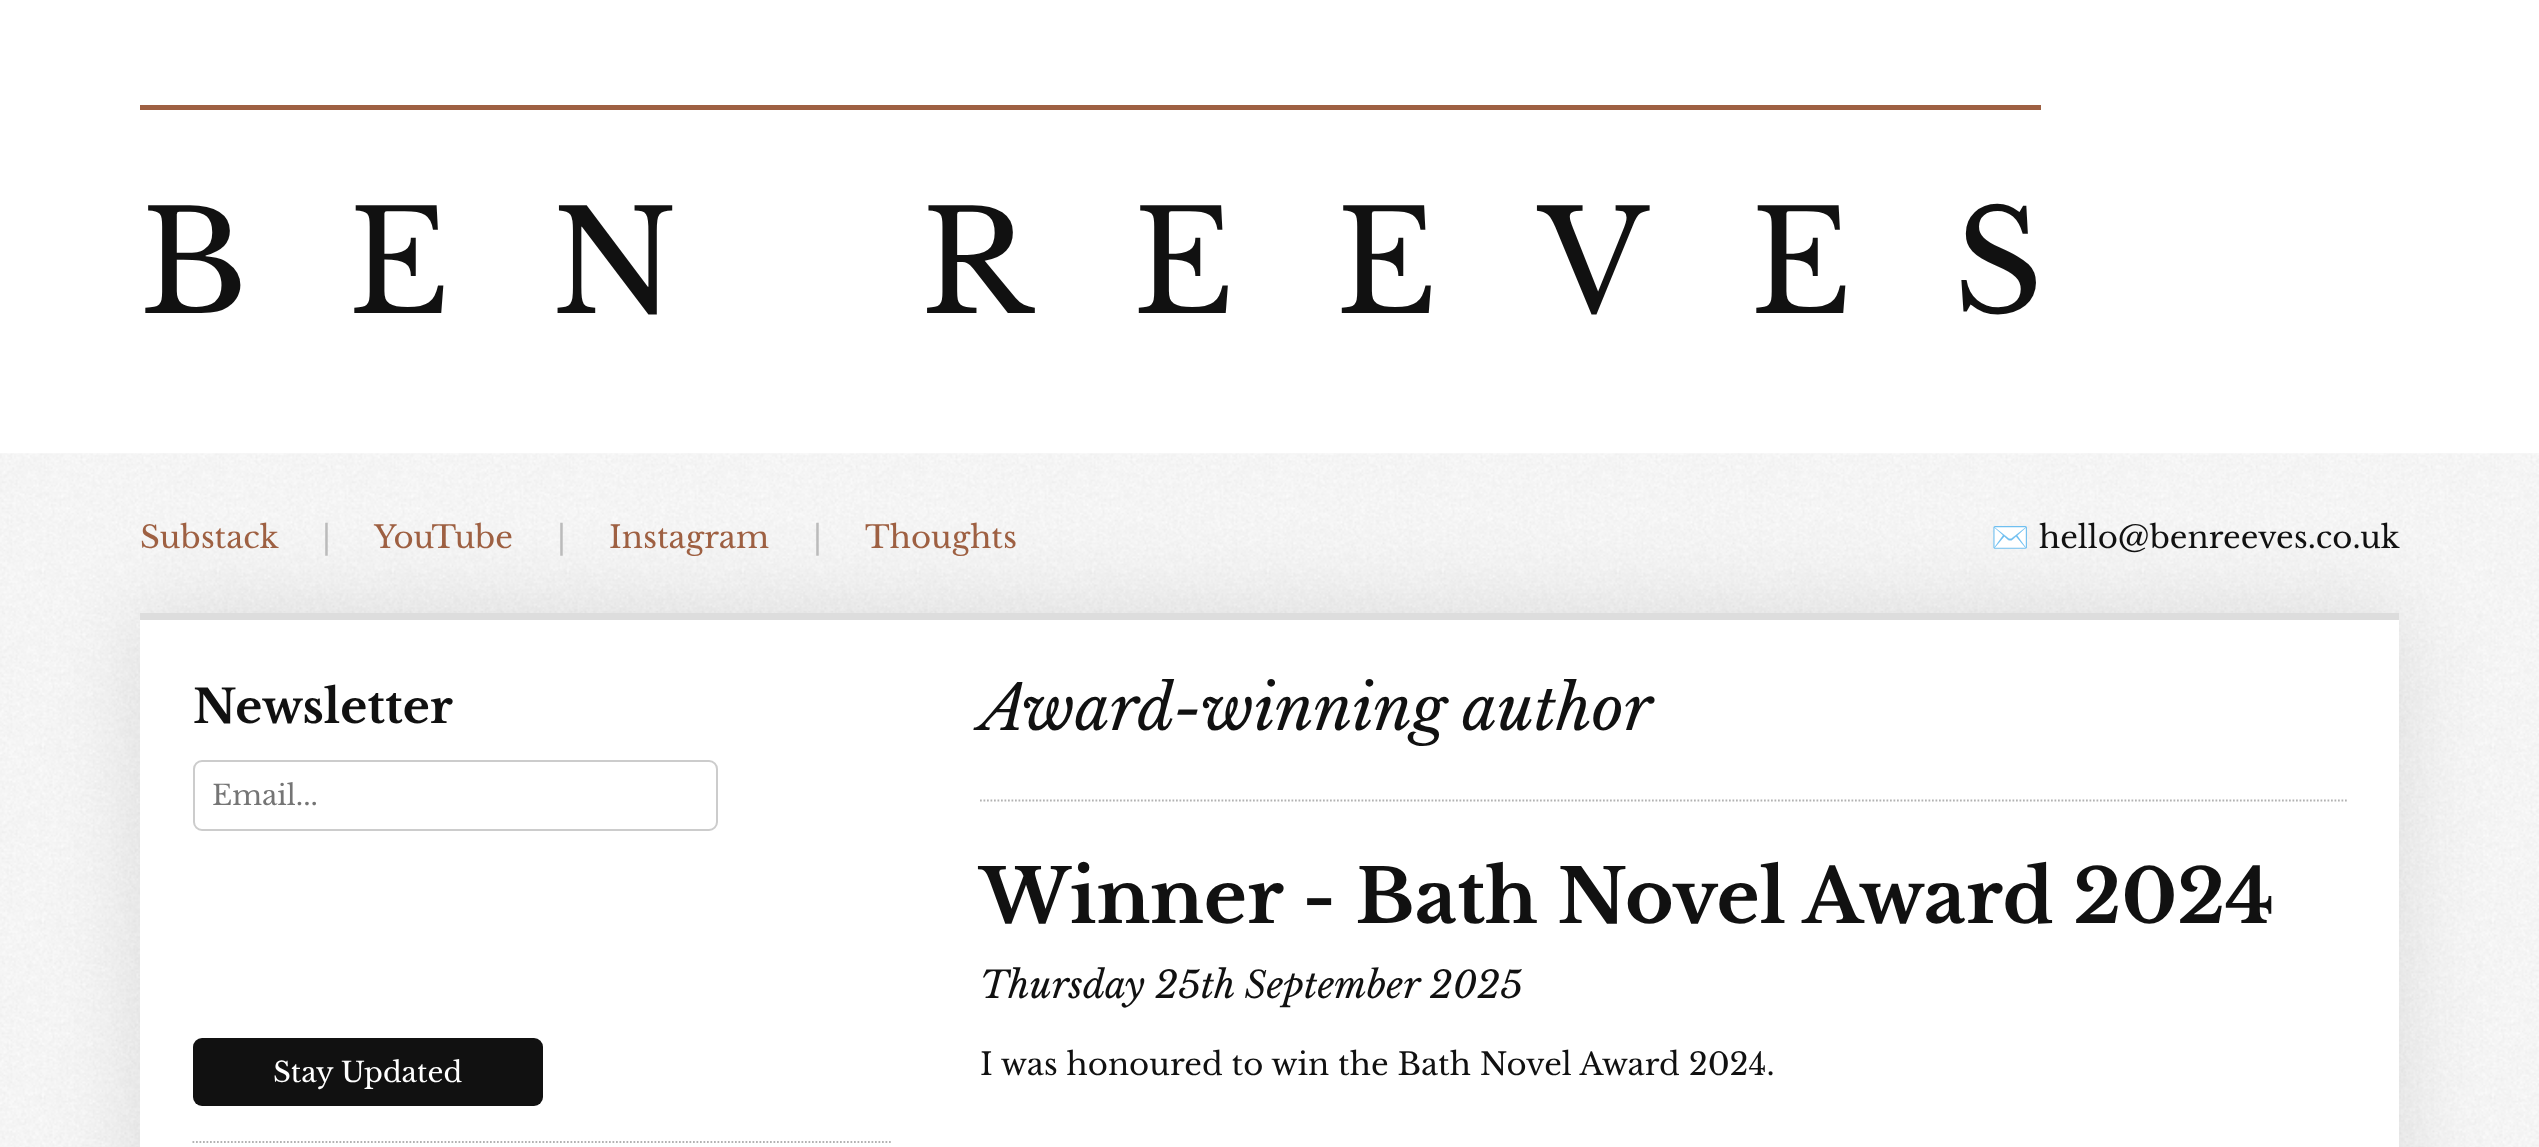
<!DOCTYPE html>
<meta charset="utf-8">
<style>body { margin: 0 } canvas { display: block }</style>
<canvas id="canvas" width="2539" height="1147"></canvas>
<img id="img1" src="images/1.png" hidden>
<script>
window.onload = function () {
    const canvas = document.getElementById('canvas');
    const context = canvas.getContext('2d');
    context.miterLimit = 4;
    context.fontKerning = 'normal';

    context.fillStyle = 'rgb(255, 255, 255)';
    context.fillRect(0, 0, 2539, 1147);
    context.fillStyle = 'rgb(158, 96, 66)';
    context.fillRect(140, 105, 1901, 5);
    context.drawImage(document.getElementById('img1'), 0, 453, 2539, 694);
    context.fillStyle = 'rgba(0, 0, 0, 0.1)';
    context.filter = 'blur(44px)';
    context.beginPath();
    context.rect(140, 613, 2259, 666);
    context.fill();
    context.filter = 'none';
    context.fillStyle = 'rgb(255, 255, 255)';
    context.fillRect(140, 620, 2259, 527);
    context.fillStyle = 'rgb(221, 221, 221)';
    context.fillRect(140, 613, 2259, 7);
    context.beginPath();
    context.roundRect(194, 761, 523, 69, 8);
    context.strokeStyle = 'rgb(204, 204, 204)';
    context.lineWidth = 2;
    context.stroke();
    context.fillStyle = 'rgb(17, 17, 17)';
    context.beginPath();
    context.roundRect(193, 1038, 350, 68, 9);
    context.fill();
    context.beginPath();
    context.moveTo(192.5, 1142);
    context.lineTo(892.5, 1142);
    context.strokeStyle = 'rgb(178, 178, 178)';
    context.lineWidth = 1.8;
    context.setLineDash([1.75, 1.75]);
    context.stroke();
    context.beginPath();
    context.moveTo(980, 800.5);
    context.lineTo(2347, 800.5);
    context.stroke();
    context.letterSpacing = '101.5px';
    context.font = '140px Libre Baskerville';
    context.fillText('BEN REEVES', 140, 313);
    context.letterSpacing = '0px';
    context.font = '30.8px Libre Baskerville';
    context.fillStyle = 'rgb(158, 96, 66)';
    context.fillText('Substack', 140, 548);
    context.fillStyle = 'rgb(187, 187, 187)';
    context.fillText('|', 322, 548);
    context.fillStyle = 'rgb(158, 96, 66)';
    context.fillText('YouTube', 374, 548);
    context.fillStyle = 'rgb(187, 187, 187)';
    context.fillText('|', 557, 548);
    context.fillStyle = 'rgb(158, 96, 66)';
    context.fillText('Instagram', 609, 548);
    context.fillStyle = 'rgb(187, 187, 187)';
    context.fillText('|', 813, 548);
    context.fillStyle = 'rgb(158, 96, 66)';
    context.fillText('Thoughts', 865, 548);
    context.font = '30.8px Noto Color Emoji';
    context.fillStyle = 'rgb(17, 17, 17)';
    context.fillText('✉️', 1991, 548);
    context.font = '30.8px Libre Baskerville';
    context.fillText('hello@benreeves.co.uk', 2039, 548);
    context.font = 'bold 46.25px Libre Baskerville';
    context.fillText('Newsletter', 193, 723);
    context.font = '27.75px Libre Baskerville';
    context.fillStyle = 'rgb(117, 117, 117)';
    context.fillText('Email...', 212, 805);
    context.fillStyle = 'rgb(255, 255, 255)';
    context.fillText('Stay Updated', 273, 1082);
    context.font = 'italic 61.6px Libre Baskerville';
    context.fillStyle = 'rgb(17, 17, 17)';
    context.fillText('Award-winning author', 980, 730);
    context.font = 'bold 73.9px Libre Baskerville';
    context.fillText('Winner - Bath Novel Award 2024', 980, 923);
    context.font = 'italic 37px Libre Baskerville';
    context.fillText('Thursday 25th September 2025', 980, 998);
    context.font = '30.8px Libre Baskerville';
    context.fillText('I was honoured to win the Bath Novel Award 2024.', 980, 1075);
};
</script>
